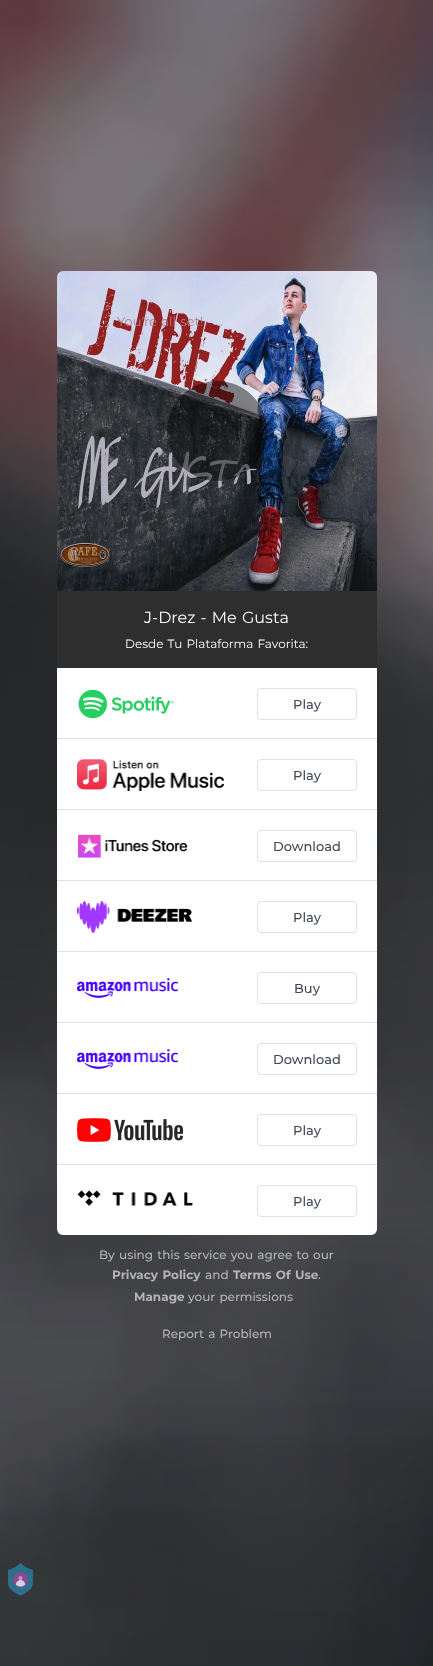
<!DOCTYPE html>
<meta charset="utf-8">
<style>body { margin: 0 } canvas { display: block }</style>
<canvas id="canvas" width="433" height="1666"></canvas>
<img id="img1" src="images/1.png" hidden>
<img id="img2" src="images/2.png" hidden>
<img id="img3" src="images/3.png" hidden>
<img id="img4" src="images/4.png" hidden>
<img id="img5" src="images/5.png" hidden>
<img id="img6" src="images/6.png" hidden>
<img id="img7" src="images/7.png" hidden>
<img id="img8" src="images/8.png" hidden>
<img id="img9" src="images/9.png" hidden>
<img id="img10" src="images/10.png" hidden>
<script>
window.onload = function () {
    const canvas = document.getElementById('canvas');
    const context = canvas.getContext('2d');
    context.miterLimit = 4;
    context.fontKerning = 'normal';

    context.fillStyle = 'rgb(255, 255, 255)';
    context.fillRect(0, 0, 433, 1666);
    context.drawImage(document.getElementById('img1'), 0, 0, 433, 1666);
    context.drawImage(document.getElementById('img2'), 57, 271, 320, 320);
    context.fillStyle = 'rgba(0, 0, 0, 0.45)';
    context.beginPath();
    context.arc(217, 431, 50, 0, 2 * Math.PI);
    context.fill();
    context.fillStyle = 'rgb(46, 46, 46)';
    context.fillRect(57, 591, 320, 77);
    context.fillStyle = 'rgb(255, 255, 255)';
    context.beginPath();
    context.roundRect(57, 668, 320, 567, [0, 0, 6, 6]);
    context.fill();
    context.fillStyle = 'rgb(225, 225, 228)';
    context.fillRect(57, 738, 320, 1);
    context.drawImage(document.getElementById('img3'), 78, 689, 96, 30);
    context.beginPath();
    context.roundRect(257.5, 688.5, 99, 31, 3.5);
    context.strokeStyle = 'rgb(225, 225, 228)';
    context.stroke();
    context.fillRect(57, 809, 320, 1);
    context.drawImage(document.getElementById('img4'), 77, 759, 147, 32);
    context.beginPath();
    context.roundRect(257.5, 759.5, 99, 31, 3.5);
    context.stroke();
    context.fillRect(57, 880, 320, 1);
    context.drawImage(document.getElementById('img5'), 78, 834, 110, 24);
    context.beginPath();
    context.roundRect(257.5, 830.5, 99, 31, 3.5);
    context.stroke();
    context.fillRect(57, 951, 320, 1);
    context.drawImage(document.getElementById('img6'), 77, 901, 115, 32);
    context.beginPath();
    context.roundRect(257.5, 901.5, 99, 31, 3.5);
    context.stroke();
    context.fillRect(57, 1022, 320, 1);
    context.drawImage(document.getElementById('img7'), 77, 978, 101, 20);
    context.beginPath();
    context.roundRect(257.5, 972.5, 99, 31, 3.5);
    context.stroke();
    context.fillRect(57, 1093, 320, 1);
    context.drawImage(document.getElementById('img7'), 77, 1049, 101, 20);
    context.beginPath();
    context.roundRect(257.5, 1043.5, 99, 31, 3.5);
    context.stroke();
    context.fillRect(57, 1164, 320, 1);
    context.drawImage(document.getElementById('img8'), 77, 1118, 106, 24);
    context.beginPath();
    context.roundRect(257.5, 1114.5, 99, 31, 3.5);
    context.stroke();
    context.drawImage(document.getElementById('img9'), 77, 1190, 116, 16);
    context.beginPath();
    context.roundRect(257.5, 1185.5, 99, 31, 3.5);
    context.stroke();
    context.drawImage(document.getElementById('img10'), 8, 1563, 25, 33);
    context.wordSpacing = '1px';
    context.font = '13px Montserrat';
    context.fillStyle = 'rgb(178, 126, 138)';
    context.fillText('You\'re all set!', 117, 326);
    context.font = '16px Montserrat';
    context.fillStyle = 'rgb(255, 255, 255)';
    context.fillText('J-Drez - Me Gusta', 144, 623);
    context.font = '12px Montserrat';
    context.fillText('Desde Tu Plataforma Favorita:', 125, 648);
    context.wordSpacing = '0px';
    context.font = '500 13px Montserrat';
    context.fillStyle = 'rgb(65, 71, 84)';
    context.fillText('Play', 293, 709);
    context.fillText('Play', 293, 780);
    context.fillText('Download', 273, 851);
    context.fillText('Play', 293, 922);
    context.fillText('Buy', 294, 993);
    context.fillText('Download', 273, 1064);
    context.fillText('Play', 293, 1135);
    context.fillText('Play', 293, 1206);
    context.wordSpacing = '1px';
    context.font = '500 12px Montserrat';
    context.fillStyle = 'rgb(180, 180, 181)';
    context.fillText('By using this service you agree to our', 99, 1259);
    context.font = 'bold 12px Montserrat';
    context.fillText('Privacy Policy', 112, 1279);
    context.wordSpacing = '0px';
    context.font = '500 12px Montserrat';
    context.fillText('and', 205, 1279);
    context.wordSpacing = '1px';
    context.font = 'bold 12px Montserrat';
    context.fillText('Terms Of Use', 233, 1279);
    context.wordSpacing = '0px';
    context.font = '500 12px Montserrat';
    context.fillText('.', 318, 1279);
    context.font = 'bold 12px Montserrat';
    context.fillText('Manage', 134, 1301);
    context.wordSpacing = '1px';
    context.font = '500 12px Montserrat';
    context.fillText('your permissions', 188, 1301);
    context.fillText('Report a Problem', 162, 1338);
};
</script>
